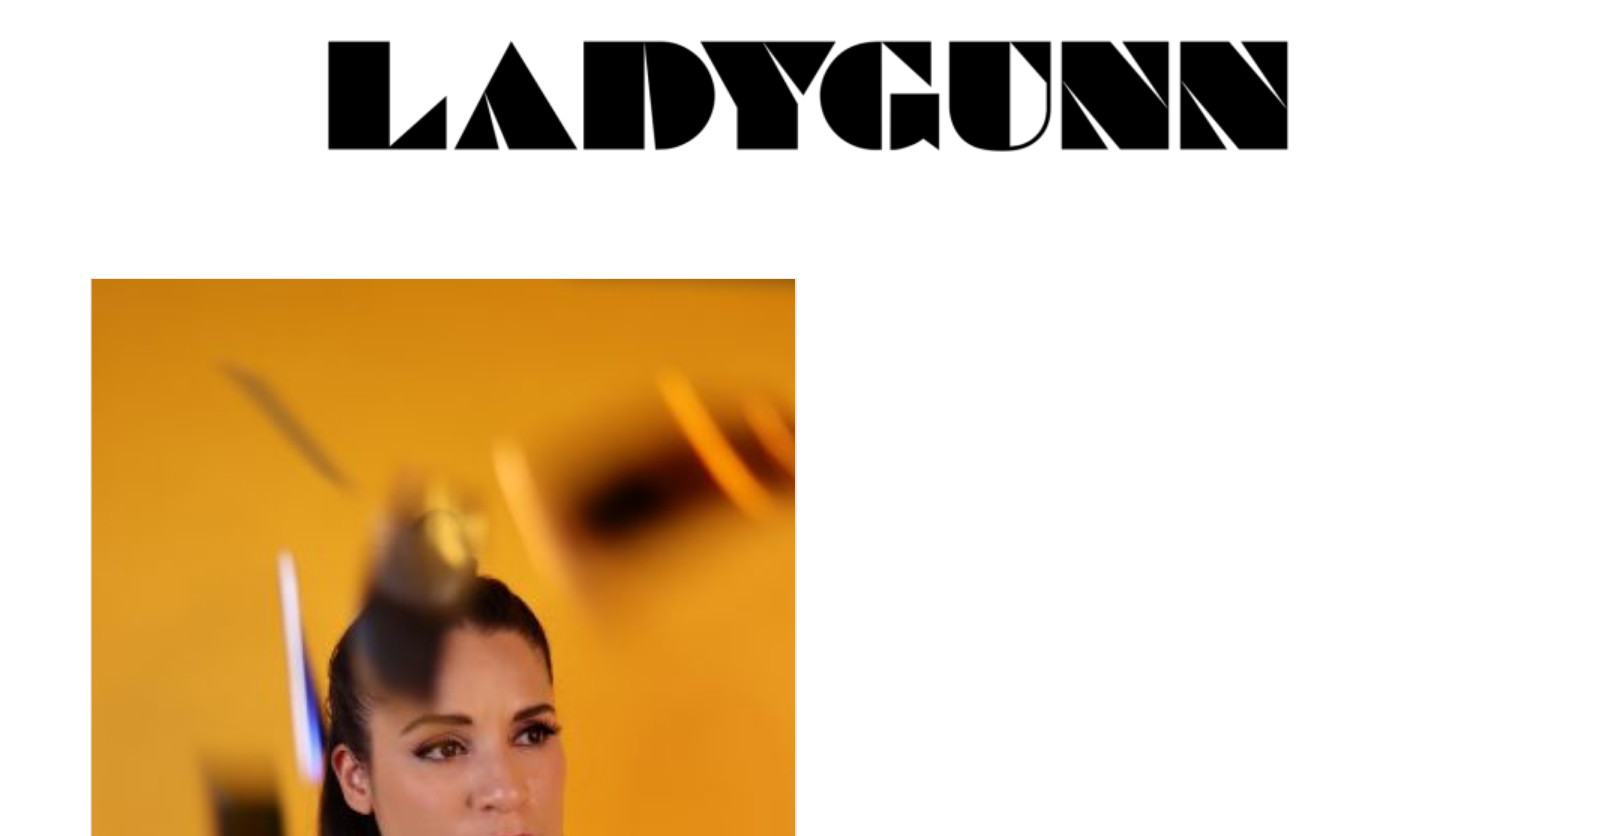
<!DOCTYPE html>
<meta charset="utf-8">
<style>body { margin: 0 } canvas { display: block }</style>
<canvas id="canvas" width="1611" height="836"></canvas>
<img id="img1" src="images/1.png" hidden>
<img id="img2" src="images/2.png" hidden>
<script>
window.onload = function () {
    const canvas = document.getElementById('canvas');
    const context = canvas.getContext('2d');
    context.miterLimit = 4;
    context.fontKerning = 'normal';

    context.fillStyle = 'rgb(255, 255, 255)';
    context.fillRect(0, 0, 1611, 836);
    context.drawImage(document.getElementById('img1'), 327, 40, 962, 112);
    context.strokeStyle = 'rgb(233, 233, 233)';
    context.lineWidth = 2;
    context.strokeRect(91, 279, 705, 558);
    context.drawImage(document.getElementById('img2'), 91, 279, 704, 557);
};
</script>
